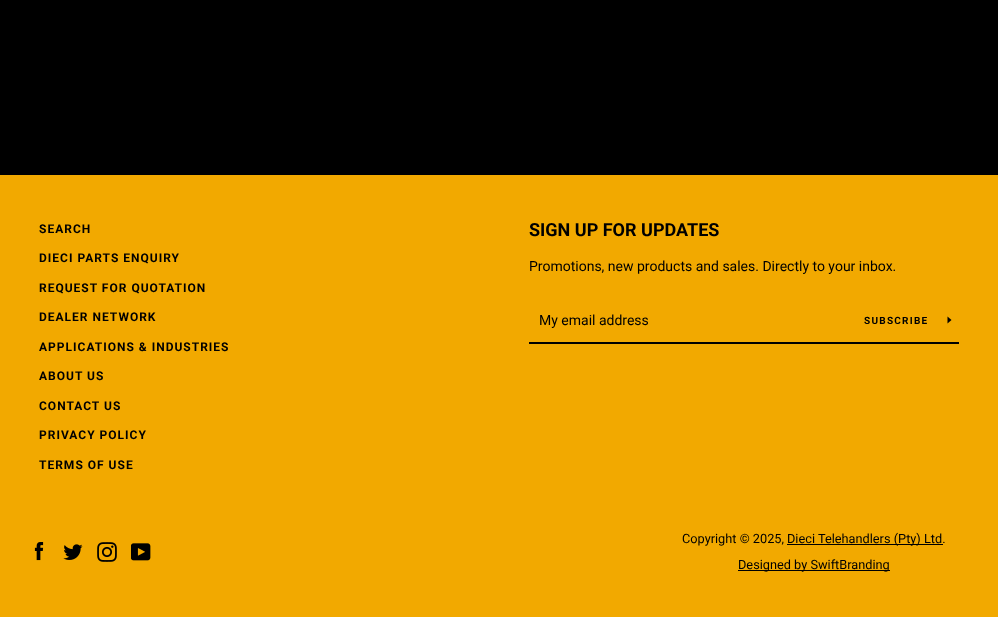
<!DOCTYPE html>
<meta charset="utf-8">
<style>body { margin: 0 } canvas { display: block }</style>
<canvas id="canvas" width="998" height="617"></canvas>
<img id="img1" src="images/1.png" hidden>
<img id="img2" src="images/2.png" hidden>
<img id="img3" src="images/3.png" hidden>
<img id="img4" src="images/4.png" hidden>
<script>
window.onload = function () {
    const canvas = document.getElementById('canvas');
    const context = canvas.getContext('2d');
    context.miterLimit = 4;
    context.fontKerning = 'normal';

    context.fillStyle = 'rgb(242, 169, 0)';
    context.fillRect(0, 0, 998, 617);
    context.fillStyle = 'rgb(0, 0, 0)';
    context.fillRect(0, 0, 998, 175);
    context.fillRect(529, 342, 430, 2);
    context.beginPath();
    context.moveTo(951.5, 320);
    context.lineTo(947.5, 323.5);
    context.lineTo(947.5, 316.5);
    context.closePath();
    context.fill();
    context.drawImage(document.getElementById('img1'), 34, 542, 10, 19);
    context.drawImage(document.getElementById('img2'), 63, 544, 20, 16);
    context.drawImage(document.getElementById('img3'), 97, 542, 20, 20);
    context.drawImage(document.getElementById('img4'), 131, 543, 20, 18);
    context.fillRect(787, 544, 156, 1);
    context.fillRect(738, 570, 152, 1);
    context.letterSpacing = '1px';
    context.font = 'bold 12px Roboto';
    context.fillText('SEARCH', 39, 233);
    context.fillText('DIECI PARTS ENQUIRY', 39, 262);
    context.fillText('REQUEST FOR QUOTATION', 39, 292);
    context.fillText('DEALER NETWORK', 39, 321);
    context.fillText('APPLICATIONS & INDUSTRIES', 39, 351);
    context.fillText('ABOUT US', 39, 380);
    context.fillText('CONTACT US', 39, 410);
    context.fillText('PRIVACY POLICY', 39, 439);
    context.fillText('TERMS OF USE', 39, 469);
    context.letterSpacing = '0px';
    context.font = 'bold 18px Roboto';
    context.fillText('SIGN UP FOR UPDATES', 529, 236);
    context.font = '14px Roboto';
    context.fillText('Promotions, new products and sales. Directly to your inbox.', 529, 271);
    context.fillText('My email address', 539, 325);
    context.letterSpacing = '1.25px';
    context.font = 'bold 10px Roboto';
    context.fillText('SUBSCRIBE', 864, 324);
    context.letterSpacing = '0px';
    context.font = '12.75px Roboto';
    context.fillText('Copyright © 2025,', 682, 543);
    context.fillText('Dieci Telehandlers (Pty) Ltd.', 787, 543);
    context.fillText('Designed by SwiftBranding', 738, 569);
};
</script>
